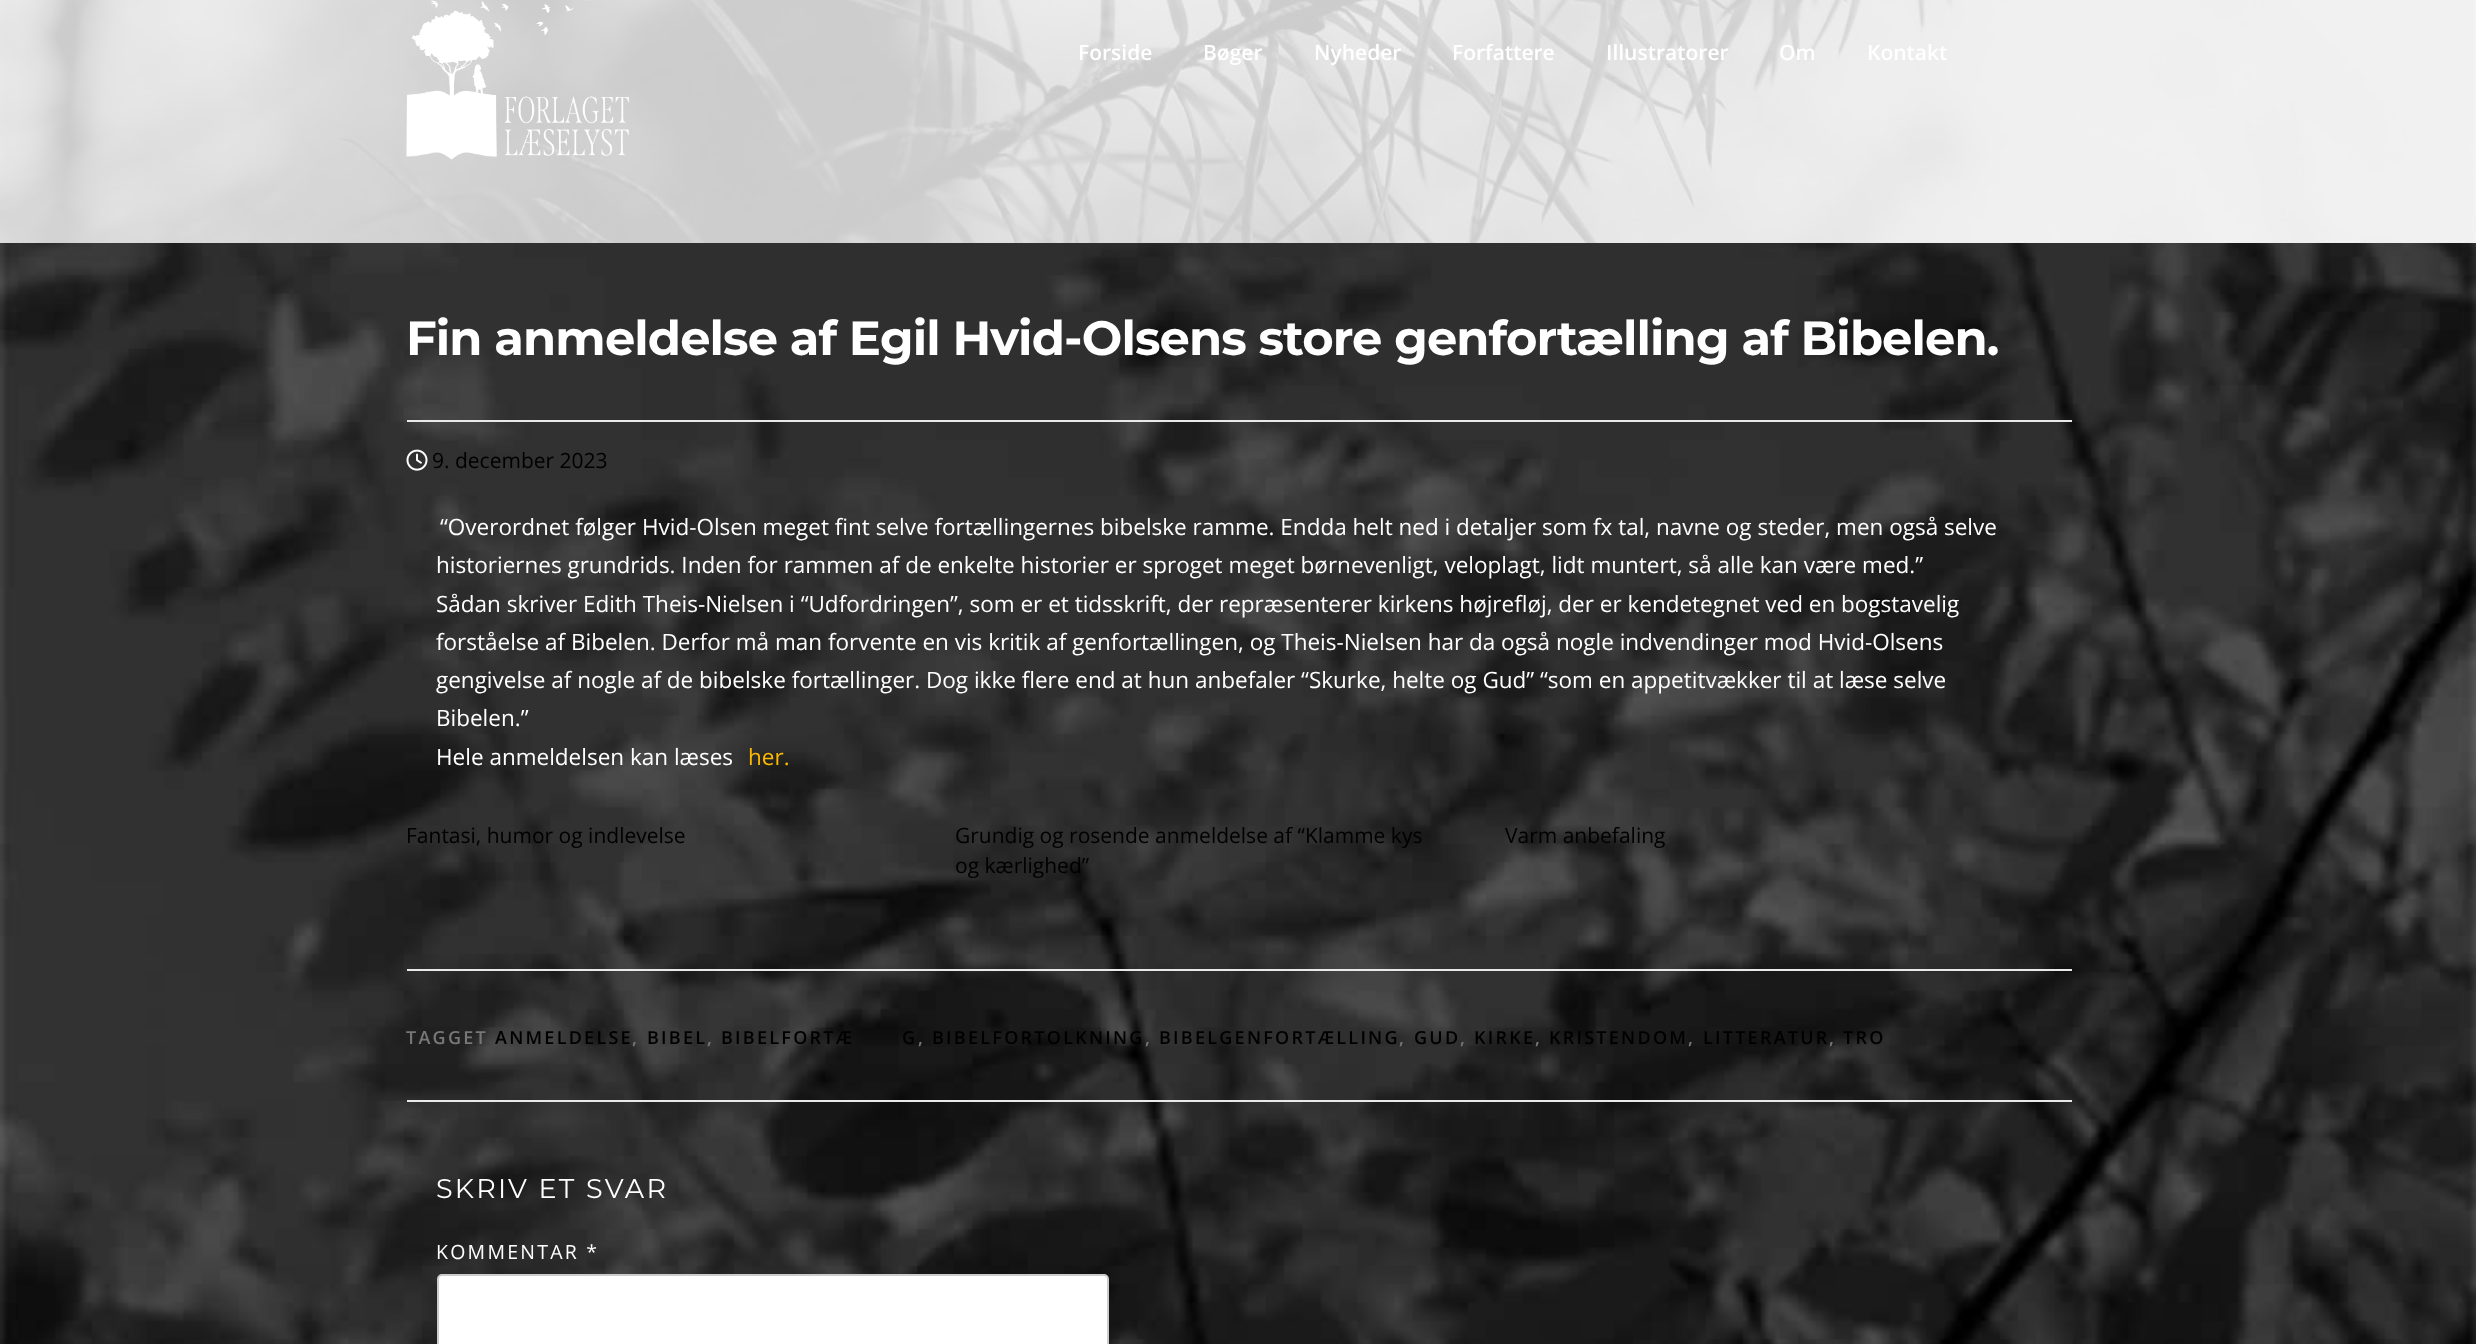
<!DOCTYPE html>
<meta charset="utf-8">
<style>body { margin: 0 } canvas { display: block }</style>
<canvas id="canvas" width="2476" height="1344"></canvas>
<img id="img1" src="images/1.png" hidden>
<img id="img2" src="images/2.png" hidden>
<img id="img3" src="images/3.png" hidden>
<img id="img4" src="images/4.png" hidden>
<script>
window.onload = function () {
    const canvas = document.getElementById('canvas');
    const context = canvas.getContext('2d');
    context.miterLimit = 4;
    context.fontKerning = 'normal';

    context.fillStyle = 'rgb(255, 255, 255)';
    context.fillRect(0, 0, 2476, 1344);
    context.drawImage(document.getElementById('img1'), 0, 243, 2476, 1101);
    context.drawImage(document.getElementById('img2'), 0, 0, 2476, 243);
    context.drawImage(document.getElementById('img3'), 406, 0, 224, 160);
    context.fillStyle = 'rgb(233, 233, 233)';
    context.fillRect(407, 420, 1665, 2);
    context.drawImage(document.getElementById('img4'), 406, 449, 22, 22);
    context.fillRect(407, 969, 1665, 2);
    context.fillRect(407, 1100, 1665, 2);
    context.fillStyle = 'rgb(255, 255, 255)';
    context.beginPath();
    context.roundRect(438, 1275, 670, 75, 4);
    context.fill();
    context.strokeStyle = 'rgb(204, 204, 204)';
    context.lineWidth = 2;
    context.stroke();
    context.font = '600 21px Open Sans';
    context.fillText('Forside', 1078, 60);
    context.fillText('Bøger', 1203, 60);
    context.fillText('Nyheder', 1314, 60);
    context.fillText('Forfattere', 1452, 60);
    context.fillText('Illustratorer', 1606, 60);
    context.fillText('Om', 1779, 60);
    context.fillText('Kontakt', 1867, 60);
    context.letterSpacing = '-0.9px';
    context.font = 'bold 48px Montserrat';
    context.fillText('Fin anmeldelse af Egil Hvid-Olsens store genfortælling af Bibelen.', 406, 355);
    context.letterSpacing = '0px';
    context.font = '21px Open Sans';
    context.fillStyle = 'rgb(0, 0, 0)';
    context.fillText('9. december 2023', 432, 468);
    context.font = '22.5px Open Sans';
    context.fillStyle = 'rgb(255, 255, 255)';
    context.fillText('“Overordnet følger Hvid-Olsen meget fint selve fortællingernes bibelske ramme. Endda helt ned i detaljer som fx tal, navne og steder, men også selve', 440, 535);
    context.fillText('historiernes grundrids. Inden for rammen af de enkelte historier er sproget meget børnevenligt, veloplagt, lidt muntert, så alle kan være med.”', 436, 573);
    context.fillText('Sådan skriver Edith Theis-Nielsen i “Udfordringen”, som er et tidsskrift, der repræsenterer kirkens højrefløj, der er kendetegnet ved en bogstavelig', 436, 612);
    context.fillText('forståelse af Bibelen. Derfor må man forvente en vis kritik af genfortællingen, og Theis-Nielsen har da også nogle indvendinger mod Hvid-Olsens', 436, 650);
    context.fillText('gengivelse af nogle af de bibelske fortællinger. Dog ikke flere end at hun anbefaler “Skurke, helte og Gud” “som en appetitvækker til at læse selve', 436, 688);
    context.fillText('Bibelen.”', 436, 726);
    context.fillText('Hele anmeldelsen kan læses', 436, 765);
    context.fillStyle = 'rgb(252, 185, 0)';
    context.fillText('her.', 748, 765);
    context.font = '21px Open Sans';
    context.fillStyle = 'rgb(0, 0, 0)';
    context.fillText('Fantasi, humor og indlevelse', 406, 843);
    context.fillText('Grundig og rosende anmeldelse af “Klamme kys', 955, 843);
    context.fillText('og kærlighed”', 955, 873);
    context.fillText('Varm anbefaling', 1505, 843);
    context.letterSpacing = '2.25px';
    context.font = '600 18px Open Sans';
    context.fillStyle = 'rgb(119, 119, 119)';
    context.fillText('TAGGET', 406, 1044);
    context.fillStyle = 'rgb(0, 0, 0)';
    context.fillText('ANMELDELSE', 495, 1044);
    context.fillStyle = 'rgb(119, 119, 119)';
    context.fillText(',', 632, 1044);
    context.fillStyle = 'rgb(0, 0, 0)';
    context.fillText('BIBEL', 647, 1044);
    context.fillStyle = 'rgb(119, 119, 119)';
    context.fillText(',', 707, 1044);
    context.fillStyle = 'rgb(0, 0, 0)';
    context.fillText('BIBELFORTÆ', 721, 1044);
    context.fillText('G', 902, 1044);
    context.fillStyle = 'rgb(119, 119, 119)';
    context.fillText(',', 918, 1044);
    context.fillStyle = 'rgb(0, 0, 0)';
    context.fillText('BIBELFORTOLKNING', 932, 1044);
    context.fillStyle = 'rgb(119, 119, 119)';
    context.fillText(',', 1145, 1044);
    context.fillStyle = 'rgb(0, 0, 0)';
    context.fillText('BIBELGENFORTÆLLING', 1159, 1044);
    context.fillStyle = 'rgb(119, 119, 119)';
    context.fillText(',', 1399, 1044);
    context.fillStyle = 'rgb(0, 0, 0)';
    context.fillText('GUD', 1414, 1044);
    context.fillStyle = 'rgb(119, 119, 119)';
    context.fillText(',', 1460, 1044);
    context.fillStyle = 'rgb(0, 0, 0)';
    context.fillText('KIRKE', 1474, 1044);
    context.fillStyle = 'rgb(119, 119, 119)';
    context.fillText(',', 1535, 1044);
    context.fillStyle = 'rgb(0, 0, 0)';
    context.fillText('KRISTENDOM', 1549, 1044);
    context.fillStyle = 'rgb(119, 119, 119)';
    context.fillText(',', 1688, 1044);
    context.fillStyle = 'rgb(0, 0, 0)';
    context.fillText('LITTERATUR', 1703, 1044);
    context.fillStyle = 'rgb(119, 119, 119)';
    context.fillText(',', 1829, 1044);
    context.fillStyle = 'rgb(0, 0, 0)';
    context.fillText('TRO', 1843, 1044);
    context.font = '27px Montserrat';
    context.fillStyle = 'rgb(255, 255, 255)';
    context.fillText('SKRIV ET SVAR', 436, 1198);
    context.font = '19.5px Open Sans';
    context.fillText('KOMMENTAR *', 436, 1259);
};
</script>
